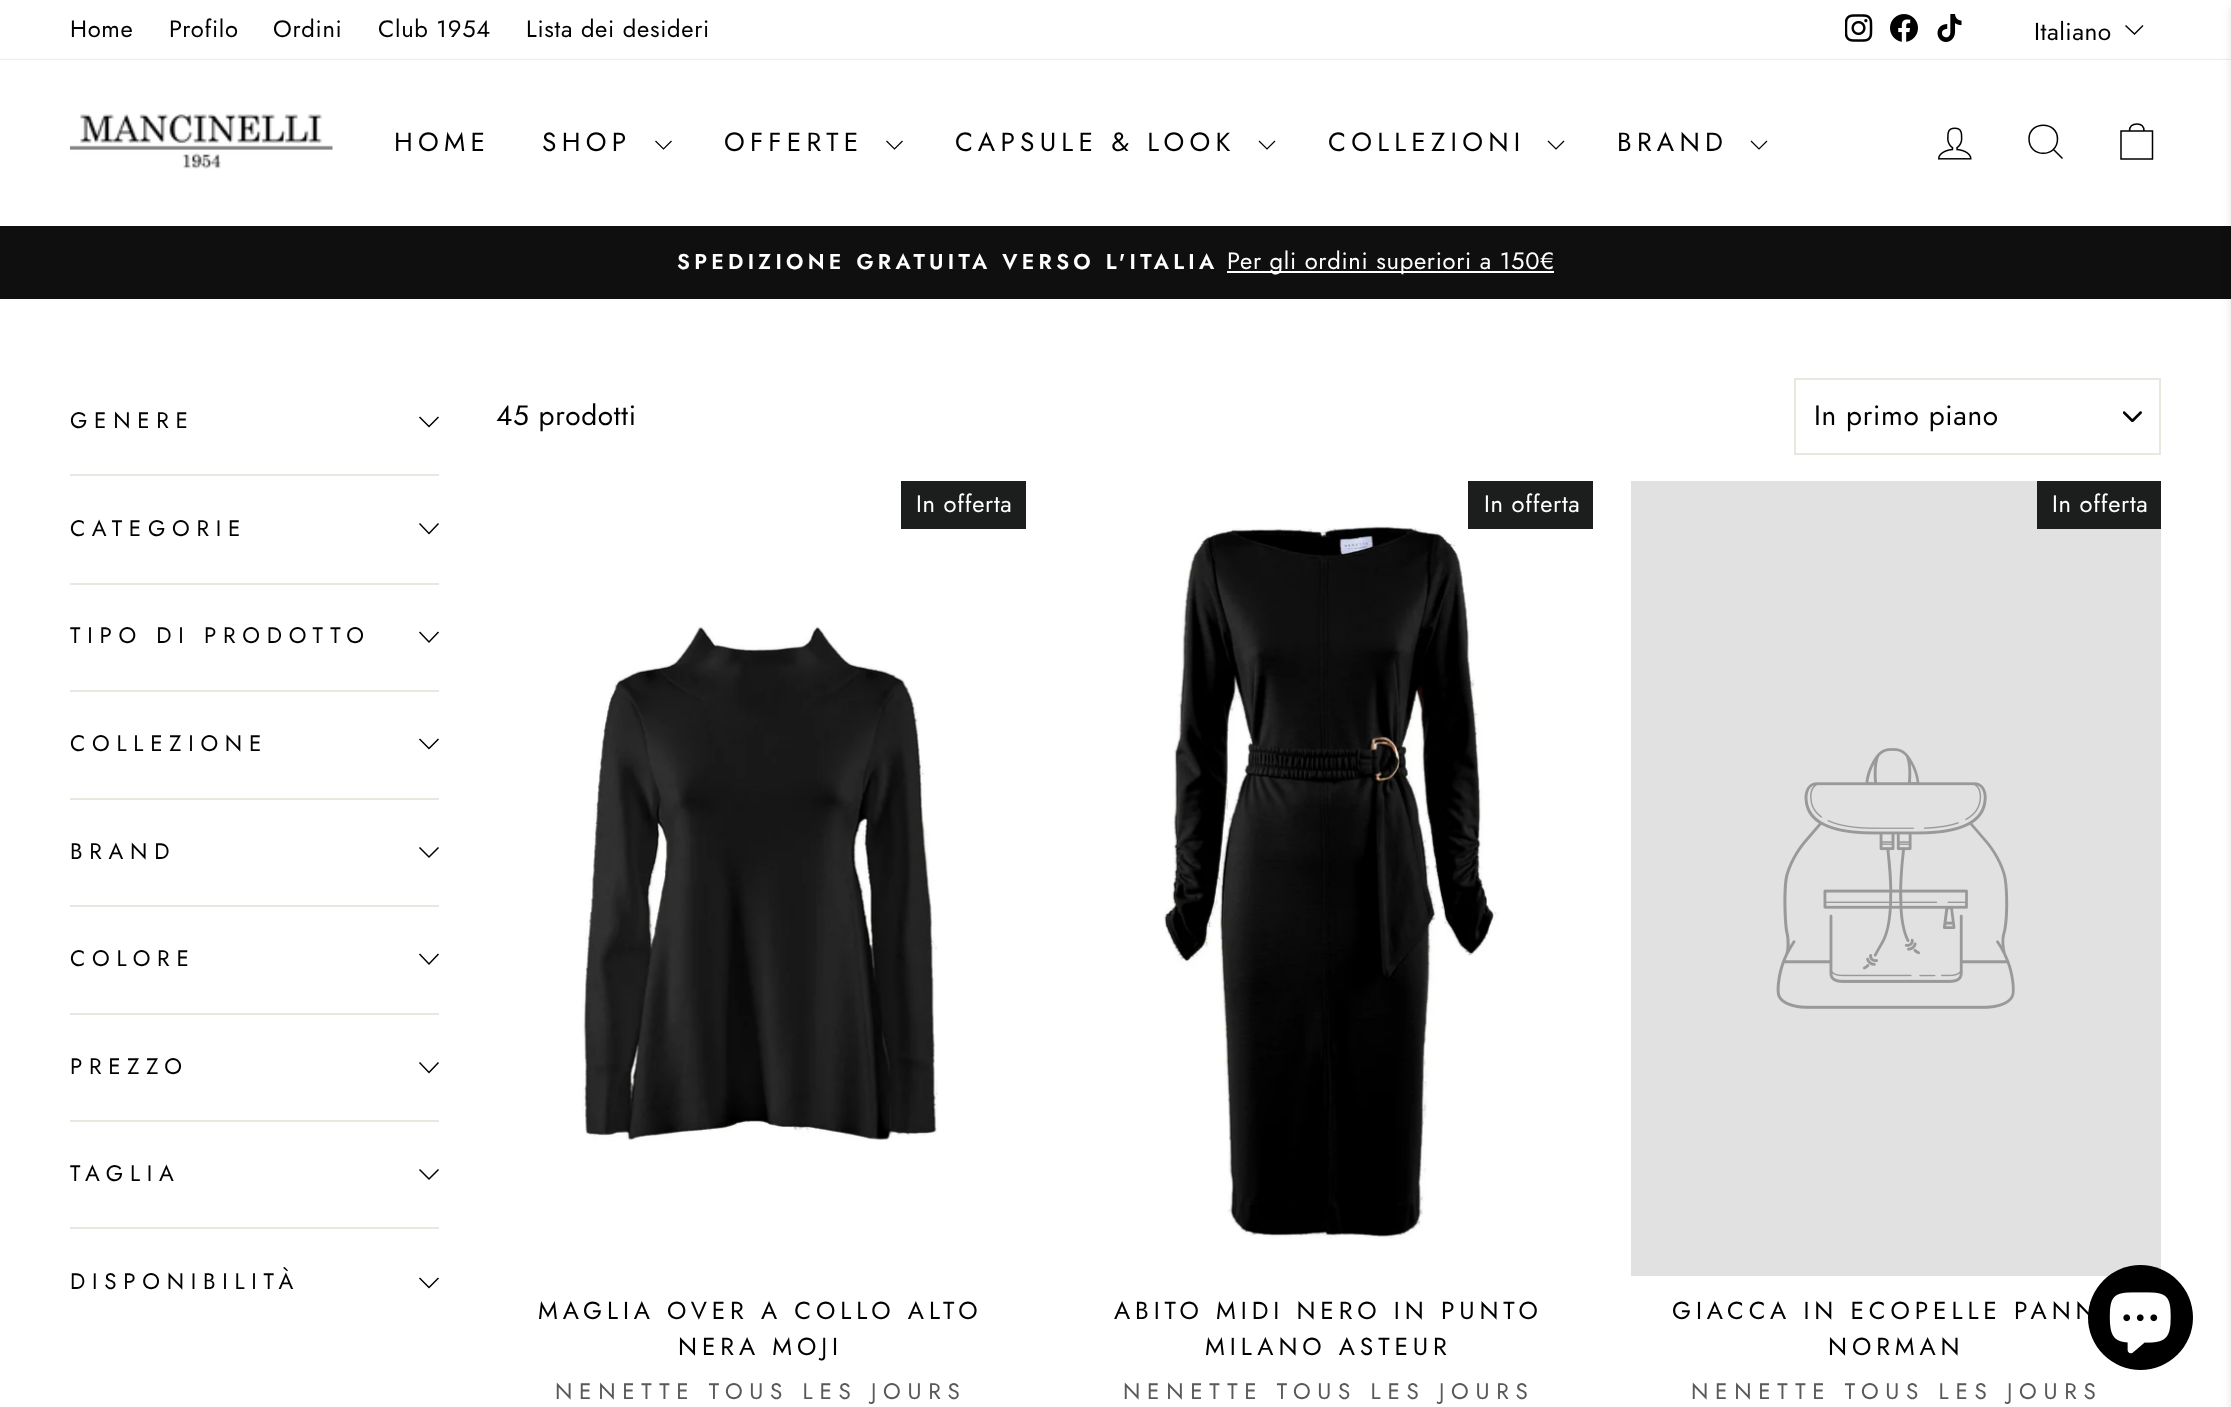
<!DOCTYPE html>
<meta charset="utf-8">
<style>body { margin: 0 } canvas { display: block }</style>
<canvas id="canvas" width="2231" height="1407"></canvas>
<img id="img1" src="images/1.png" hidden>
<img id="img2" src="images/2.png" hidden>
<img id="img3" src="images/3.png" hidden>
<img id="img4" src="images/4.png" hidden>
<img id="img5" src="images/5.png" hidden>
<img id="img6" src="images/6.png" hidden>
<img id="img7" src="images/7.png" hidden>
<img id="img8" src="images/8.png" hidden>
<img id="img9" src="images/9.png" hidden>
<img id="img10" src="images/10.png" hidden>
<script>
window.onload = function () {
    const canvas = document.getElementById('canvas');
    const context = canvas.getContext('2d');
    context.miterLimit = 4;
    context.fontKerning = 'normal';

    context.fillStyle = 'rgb(255, 255, 255)';
    context.fillRect(0, 0, 2231, 1407);
    context.drawImage(document.getElementById('img1'), 1845, 14, 28, 28);
    context.drawImage(document.getElementById('img2'), 1890, 14, 28, 28);
    context.drawImage(document.getElementById('img3'), 1937, 14, 25, 28);
    context.beginPath();
    context.moveTo(2125.5, 25.5);
    context.lineTo(2134.5, 34);
    context.lineTo(2143, 25.5);
    context.strokeStyle = 'rgb(0, 0, 0)';
    context.lineWidth = 1.4;
    context.stroke();
    context.fillStyle = 'rgb(15, 15, 15)';
    context.fillRect(0, 226, 2231, 73);
    context.fillStyle = 'rgba(0, 0, 0, 0.2)';
    context.filter = 'blur(1px)';
    context.beginPath();
    context.rect(0, 60, 2231, 166);
    context.fill();
    context.filter = 'none';
    context.fillStyle = 'rgb(255, 255, 255)';
    context.fillRect(0, 60, 2231, 166);
    context.drawImage(document.getElementById('img4'), 70, 114, 263, 55);
    context.beginPath();
    context.moveTo(655.5, 141);
    context.lineTo(663.5, 149);
    context.lineTo(671.5, 141);
    context.lineWidth = 1.2;
    context.stroke();
    context.beginPath();
    context.moveTo(886.5, 141);
    context.lineTo(894.5, 149);
    context.lineTo(902.5, 141);
    context.stroke();
    context.beginPath();
    context.moveTo(1259, 141);
    context.lineTo(1267, 149);
    context.lineTo(1275, 141);
    context.stroke();
    context.beginPath();
    context.moveTo(1548, 141);
    context.lineTo(1556, 149);
    context.lineTo(1564, 141);
    context.stroke();
    context.beginPath();
    context.moveTo(1751, 141);
    context.lineTo(1759, 149);
    context.lineTo(1767, 141);
    context.stroke();
    context.drawImage(document.getElementById('img5'), 1937, 127, 35, 33);
    context.beginPath();
    context.moveTo(2057.5, 139);
    context.bezierCurveTo(2057.5, 158, 2029, 158, 2029, 139);
    context.bezierCurveTo(2029, 120.5, 2057.5, 120.5, 2057.5, 139);
    context.closePath();
    context.moveTo(2062.5, 158.5);
    context.lineTo(2053.5, 149.5);
    context.lineWidth = 1.5;
    context.stroke();
    context.beginPath();
    context.moveTo(2121, 131);
    context.lineTo(2152.5, 131);
    context.lineTo(2152.5, 159);
    context.lineTo(2121, 159);
    context.closePath();
    context.moveTo(2129.5, 131);
    context.bezierCurveTo(2129.5, 125.5, 2132.5, 124, 2137, 124);
    context.bezierCurveTo(2141, 124, 2144, 125.5, 2144, 131);
    context.stroke();
    context.fillRect(1227, 271, 327, 2);
    context.beginPath();
    context.moveTo(419.5, 417);
    context.lineTo(429, 426.5);
    context.lineTo(438.5, 417);
    context.stroke();
    context.fillStyle = 'rgb(232, 232, 225)';
    context.fillRect(70, 474, 369, 2);
    context.beginPath();
    context.moveTo(419.5, 523.5);
    context.lineTo(429, 533.5);
    context.lineTo(438.5, 523.5);
    context.stroke();
    context.fillRect(70, 583, 369, 2);
    context.beginPath();
    context.moveTo(419.5, 632);
    context.lineTo(429, 642);
    context.lineTo(438.5, 632);
    context.stroke();
    context.fillRect(70, 690, 369, 2);
    context.beginPath();
    context.moveTo(419.5, 739);
    context.lineTo(429, 748.5);
    context.lineTo(438.5, 739);
    context.stroke();
    context.fillRect(70, 798, 369, 2);
    context.beginPath();
    context.moveTo(419.5, 847.5);
    context.lineTo(429, 857);
    context.lineTo(438.5, 847.5);
    context.stroke();
    context.fillRect(70, 905, 369, 2);
    context.beginPath();
    context.moveTo(419.5, 954);
    context.lineTo(429, 964);
    context.lineTo(438.5, 954);
    context.stroke();
    context.fillRect(70, 1013, 369, 2);
    context.beginPath();
    context.moveTo(419.5, 1062.5);
    context.lineTo(429, 1072.5);
    context.lineTo(438.5, 1062.5);
    context.stroke();
    context.fillRect(70, 1120, 369, 2);
    context.beginPath();
    context.moveTo(419.5, 1169.5);
    context.lineTo(429, 1179);
    context.lineTo(438.5, 1169.5);
    context.stroke();
    context.fillRect(70, 1227, 369, 2);
    context.beginPath();
    context.moveTo(419.5, 1278);
    context.lineTo(429, 1287.5);
    context.lineTo(438.5, 1278);
    context.stroke();
    context.drawImage(document.getElementById('img6'), 2123, 411, 19, 11);
    context.strokeStyle = 'rgb(232, 232, 225)';
    context.lineWidth = 2;
    context.strokeRect(1795, 379, 365, 75);
    context.fillStyle = 'rgb(28, 29, 29)';
    context.fillRect(901, 481, 125, 48);
    context.drawImage(document.getElementById('img7'), 582, 626, 356, 515);
    context.drawImage(document.getElementById('img8'), 1163, 525, 336, 714);
    context.fillRect(1468, 481, 125, 48);
    context.fillStyle = 'rgb(225, 225, 225)';
    context.fillRect(1631, 481, 530, 795);
    context.fillStyle = 'rgb(28, 29, 29)';
    context.fillRect(2037, 481, 124, 48);
    context.drawImage(document.getElementById('img9'), 1776, 748, 239, 261);
    context.fillStyle = 'rgba(0, 0, 0, 0.1)';
    context.filter = 'blur(5px)';
    context.beginPath();
    context.rect(2231, 7, 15, 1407);
    context.fill();
    context.filter = 'none';
    context.fillStyle = 'rgb(0, 0, 0)';
    context.beginPath();
    context.arc(2140.5, 1317.5, 52.5, 0, 2 * Math.PI);
    context.fill();
    context.drawImage(document.getElementById('img10'), 2109, 1292, 62, 62);
    context.letterSpacing = '0.7px';
    context.font = '23.75px Jost';
    context.fillText('Home', 70, 37);
    context.fillText('Profilo', 169, 37);
    context.fillText('Ordini', 273, 37);
    context.fillText('Club 1954', 378, 37);
    context.fillText('Lista dei desideri', 526, 37);
    context.letterSpacing = '0.5px';
    context.font = '24.5px Jost';
    context.fillText('Italiano', 2034, 40);
    context.letterSpacing = '5.25px';
    context.font = '26.25px Jost';
    context.fillText('HOME', 394, 151);
    context.fillText('SHOP', 542, 151);
    context.fillText('OFFERTE', 724, 151);
    context.fillText('CAPSULE & LOOK', 955, 151);
    context.fillText('COLLEZIONI', 1328, 151);
    context.fillText('BRAND', 1617, 151);
    context.letterSpacing = '4.3px';
    context.font = '600 21.4px Jost';
    context.fillStyle = 'rgb(255, 255, 255)';
    context.fillText('SPEDIZIONE GRATUITA VERSO L\'ITALIA', 677, 269);
    context.letterSpacing = '0.7px';
    context.font = '23.75px Jost';
    context.fillText('Per gli ordini superiori a 150€', 1227, 269);
    context.letterSpacing = '6.75px';
    context.font = '22.4px Jost';
    context.fillStyle = 'rgb(0, 0, 0)';
    context.fillText('GENERE', 70, 428);
    context.fillText('CATEGORIE', 70, 536);
    context.fillText('TIPO DI PRODOTTO', 70, 643);
    context.fillText('COLLEZIONE', 70, 751);
    context.fillText('BRAND', 70, 859);
    context.fillText('COLORE', 70, 966);
    context.fillText('PREZZO', 70, 1074);
    context.fillText('TAGLIA', 70, 1181);
    context.fillText('DISPONIBILITÀ', 70, 1289);
    context.letterSpacing = '0.7px';
    context.font = '28px Jost';
    context.fillText('45 prodotti', 496, 425);
    context.fillText('In primo piano', 1814, 425);
    context.font = '23.75px Jost';
    context.fillStyle = 'rgb(255, 255, 255)';
    context.fillText('In offerta', 916, 512);
    context.letterSpacing = '4.9px';
    context.font = '24.5px Jost';
    context.fillStyle = 'rgb(0, 0, 0)';
    context.fillText('MAGLIA OVER A COLLO ALTO', 538, 1319);
    context.fillText('NERA MOJI', 678, 1355);
    context.letterSpacing = '6.75px';
    context.font = '22.4px Jost';
    context.fillStyle = 'rgb(89, 89, 89)';
    context.fillText('NENETTE TOUS LES JOURS', 555, 1399);
    context.letterSpacing = '0.7px';
    context.font = '23.75px Jost';
    context.fillStyle = 'rgb(255, 255, 255)';
    context.fillText('In offerta', 1484, 512);
    context.letterSpacing = '4.9px';
    context.font = '24.5px Jost';
    context.fillStyle = 'rgb(0, 0, 0)';
    context.fillText('ABITO MIDI NERO IN PUNTO', 1114, 1319);
    context.fillText('MILANO ASTEUR', 1205, 1355);
    context.letterSpacing = '6.75px';
    context.font = '22.4px Jost';
    context.fillStyle = 'rgb(89, 89, 89)';
    context.fillText('NENETTE TOUS LES JOURS', 1123, 1399);
    context.letterSpacing = '0.7px';
    context.font = '23.75px Jost';
    context.fillStyle = 'rgb(255, 255, 255)';
    context.fillText('In offerta', 2052, 512);
    context.letterSpacing = '4.9px';
    context.font = '24.5px Jost';
    context.fillStyle = 'rgb(0, 0, 0)';
    context.fillText('GIACCA IN ECOPELLE PANN', 1672, 1319);
    context.fillText('NORMAN', 1828, 1355);
    context.letterSpacing = '6.75px';
    context.font = '22.4px Jost';
    context.fillStyle = 'rgb(89, 89, 89)';
    context.fillText('NENETTE TOUS LES JOURS', 1691, 1399);
};
</script>
